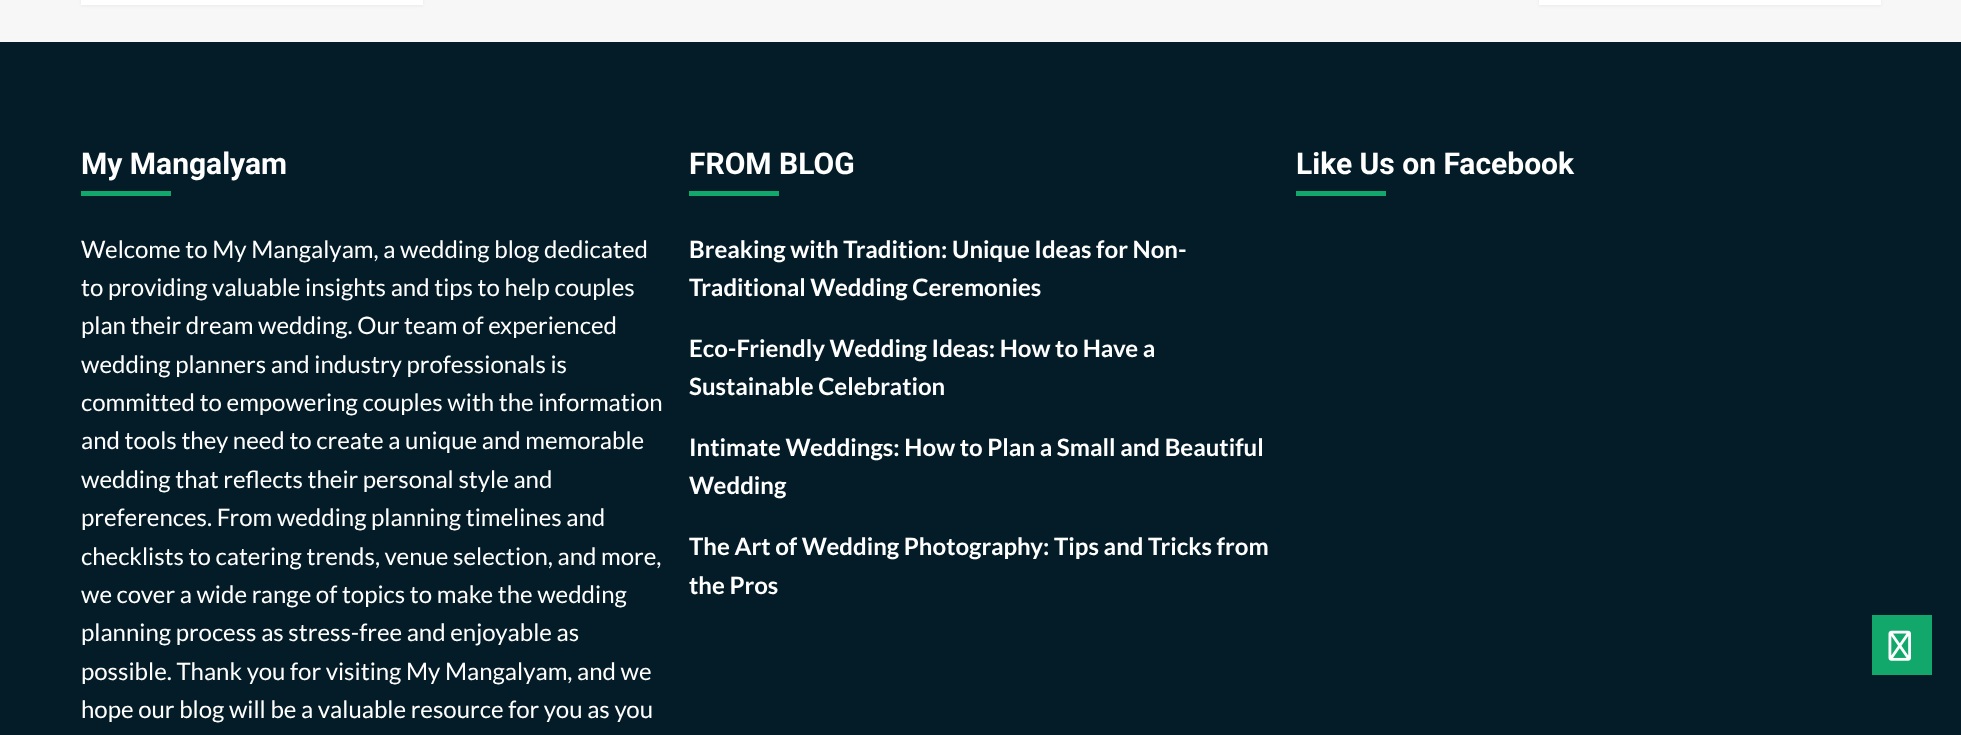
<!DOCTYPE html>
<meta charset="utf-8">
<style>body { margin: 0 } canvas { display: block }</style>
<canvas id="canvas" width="1961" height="735"></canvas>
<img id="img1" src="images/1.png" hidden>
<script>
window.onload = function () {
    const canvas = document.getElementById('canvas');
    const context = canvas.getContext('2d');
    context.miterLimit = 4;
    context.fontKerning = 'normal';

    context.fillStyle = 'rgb(247, 247, 247)';
    context.fillRect(0, 0, 1961, 735);
    context.fillStyle = 'rgba(0, 0, 0, 0.05)';
    context.filter = 'blur(1.5px)';
    context.beginPath();
    context.rect(81, -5, 342, 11);
    context.fill();
    context.filter = 'none';
    context.fillStyle = 'rgb(255, 255, 255)';
    context.fillRect(81, 0, 342, 5);
    context.fillStyle = 'rgba(0, 0, 0, 0.05)';
    context.filter = 'blur(1.5px)';
    context.beginPath();
    context.rect(1539, -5, 342, 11);
    context.fill();
    context.filter = 'none';
    context.fillStyle = 'rgb(255, 255, 255)';
    context.fillRect(1539, 0, 342, 5);
    context.fillStyle = 'rgb(3, 28, 39)';
    context.fillRect(0, 42, 1961, 693);
    context.fillStyle = 'rgb(18, 168, 107)';
    context.fillRect(81, 191, 90, 5);
    context.fillRect(689, 191, 90, 5);
    context.fillRect(1296, 191, 90, 5);
    context.fillRect(1872, 615, 60, 60);
    context.drawImage(document.getElementById('img1'), 1888, 630, 23, 31);
    context.font = 'bold 30px Roboto';
    context.fillStyle = 'rgb(255, 255, 255)';
    context.fillText('My Mangalyam', 81, 174);
    context.font = '24px Lato';
    context.fillText('Welcome to My Mangalyam, a wedding blog dedicated', 81, 258);
    context.fillText('to providing valuable insights and tips to help couples', 81, 296);
    context.fillText('plan their dream wedding. Our team of experienced', 81, 334);
    context.fillText('wedding planners and industry professionals is', 81, 373);
    context.fillText('committed to empowering couples with the information', 81, 411);
    context.fillText('and tools they need to create a unique and memorable', 81, 449);
    context.fillText('wedding that reflects their personal style and', 81, 488);
    context.fillText('preferences. From wedding planning timelines and', 81, 526);
    context.fillText('checklists to catering trends, venue selection, and more,', 81, 565);
    context.fillText('we cover a wide range of topics to make the wedding', 81, 603);
    context.fillText('planning process as stress-free and enjoyable as', 81, 641);
    context.fillText('possible. Thank you for visiting My Mangalyam, and we', 81, 680);
    context.fillText('hope our blog will be a valuable resource for you as you', 81, 718);
    context.font = 'bold 30px Roboto';
    context.fillText('FROM BLOG', 689, 174);
    context.font = 'bold 24px Lato';
    context.fillText('Breaking with Tradition: Unique Ideas for Non-', 689, 258);
    context.fillText('Traditional Wedding Ceremonies', 689, 296);
    context.fillText('Eco-Friendly Wedding Ideas: How to Have a', 689, 357);
    context.fillText('Sustainable Celebration', 689, 395);
    context.fillText('Intimate Weddings: How to Plan a Small and Beautiful', 689, 456);
    context.fillText('Wedding', 689, 494);
    context.fillText('The Art of Wedding Photography: Tips and Tricks from', 689, 555);
    context.fillText('the Pros', 689, 594);
    context.font = 'bold 30px Roboto';
    context.fillText('Like Us on Facebook', 1296, 174);
};
</script>
